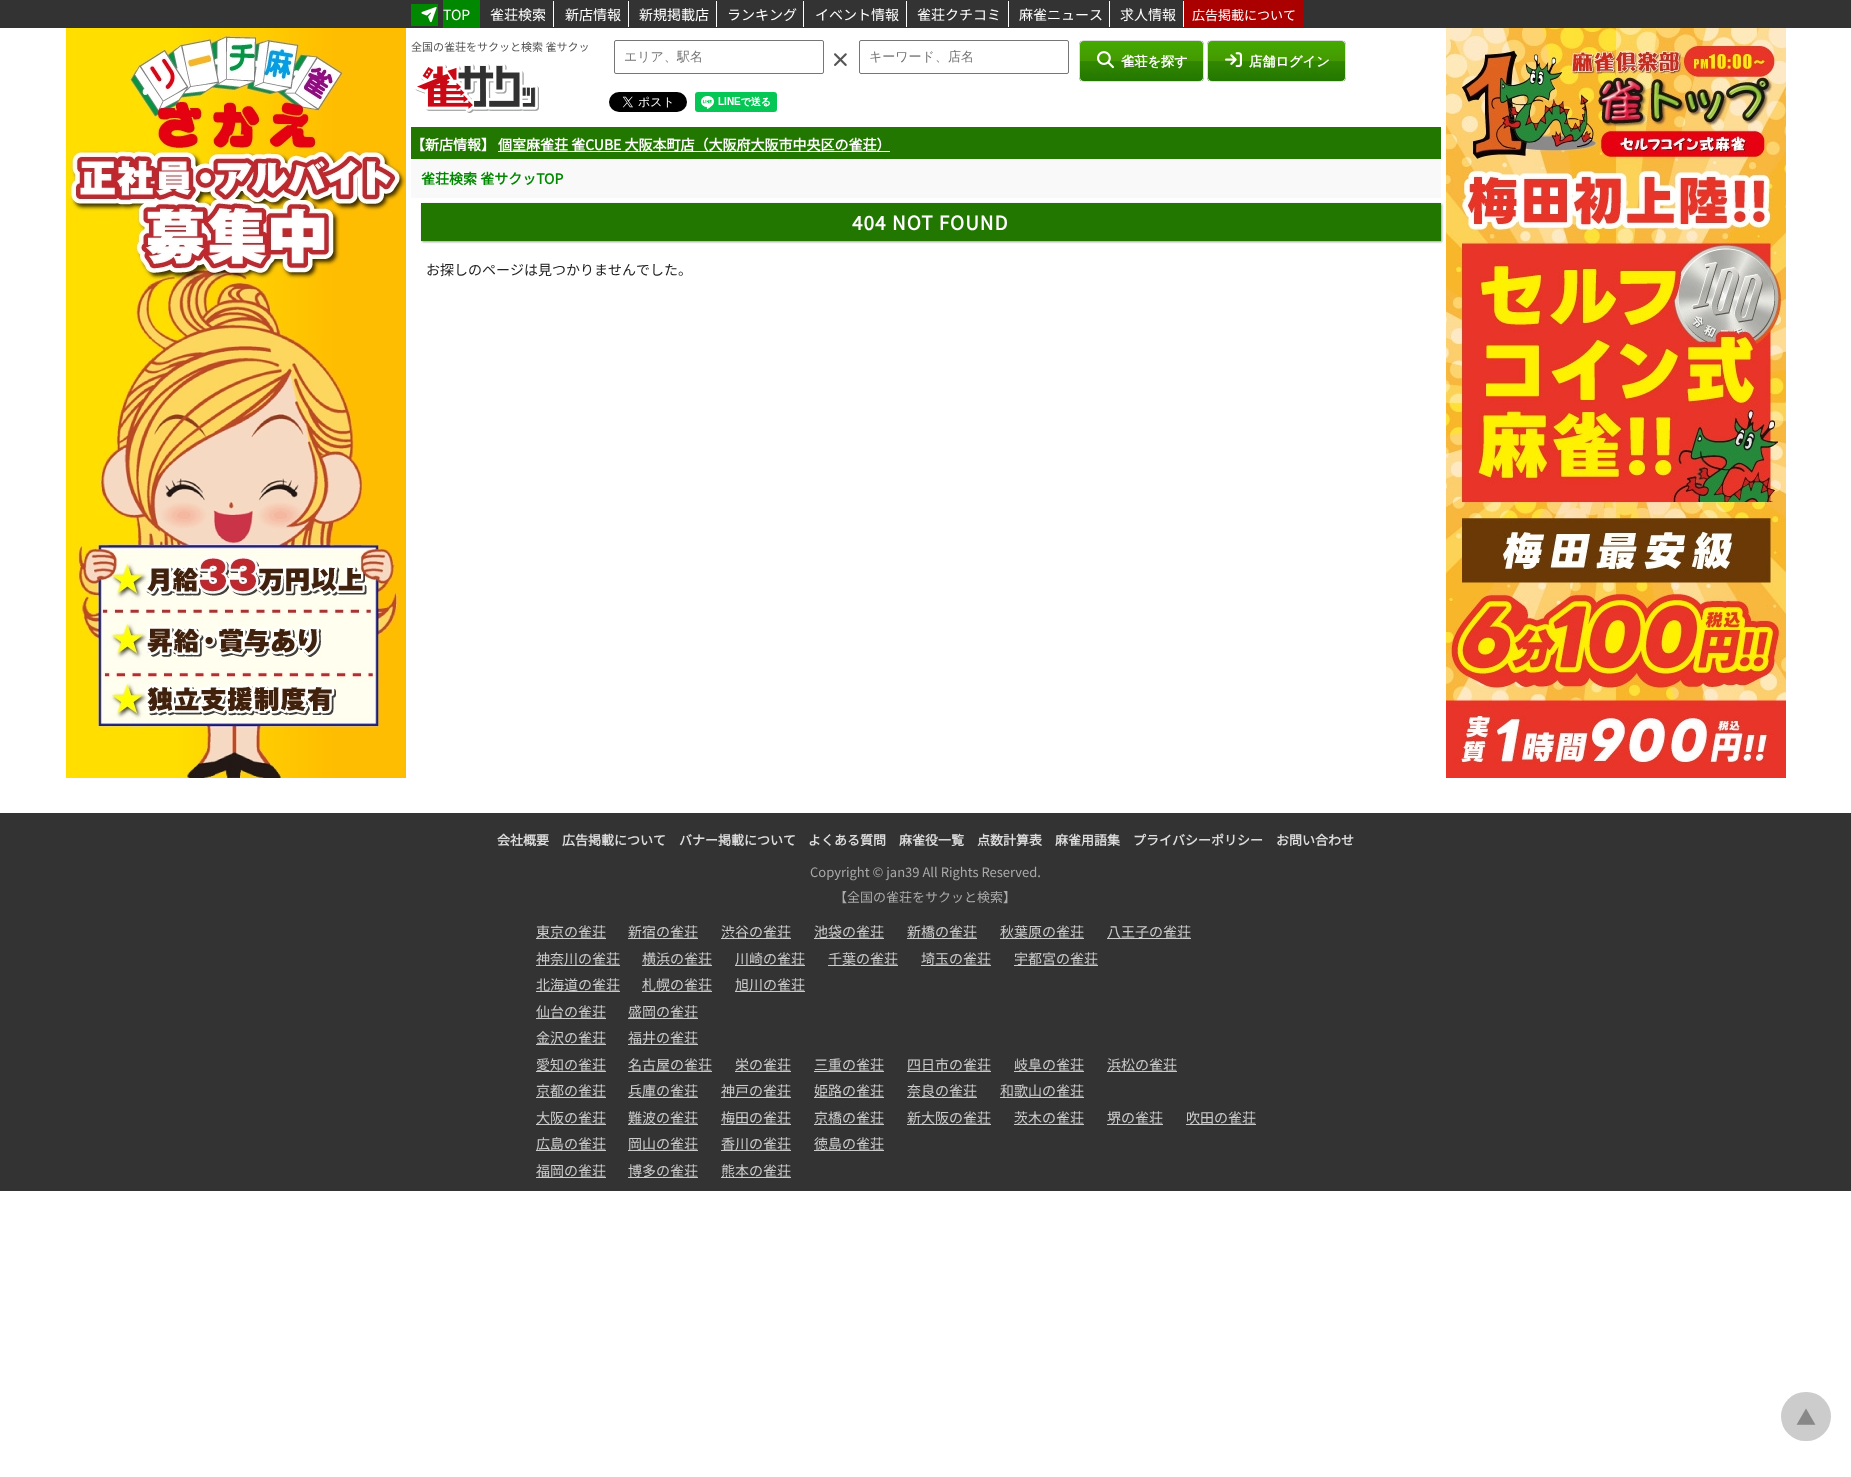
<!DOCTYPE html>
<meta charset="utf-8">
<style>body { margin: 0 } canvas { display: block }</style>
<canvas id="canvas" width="1851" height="1477"></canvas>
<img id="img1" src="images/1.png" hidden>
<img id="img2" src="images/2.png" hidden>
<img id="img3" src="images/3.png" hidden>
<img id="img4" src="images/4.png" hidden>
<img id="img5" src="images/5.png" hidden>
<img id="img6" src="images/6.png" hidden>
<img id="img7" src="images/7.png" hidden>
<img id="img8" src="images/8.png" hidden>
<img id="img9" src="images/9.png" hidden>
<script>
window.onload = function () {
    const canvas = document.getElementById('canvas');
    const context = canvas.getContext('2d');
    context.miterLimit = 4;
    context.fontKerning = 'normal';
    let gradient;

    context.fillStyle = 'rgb(255, 255, 255)';
    context.fillRect(0, 0, 1851, 1477);
    context.fillStyle = 'rgb(51, 51, 51)';
    context.fillRect(0, 0, 1851, 28);
    context.fillStyle = 'rgb(0, 136, 0)';
    context.fillRect(411, 4, 27, 22);
    context.fillRect(443, 0, 37, 28);
    context.drawImage(document.getElementById('img1'), 421, 7, 16, 16);
    context.fillStyle = 'rgb(255, 255, 255)';
    context.fillRect(553, 1, 1, 26);
    context.fillRect(628, 1, 1, 26);
    context.fillRect(716, 1, 1, 26);
    context.fillRect(803, 1, 1, 26);
    context.fillRect(906, 1, 1, 26);
    context.fillRect(1008, 1, 1, 26);
    context.fillRect(1109, 1, 1, 26);
    context.fillRect(1183, 1, 1, 26);
    context.fillStyle = 'rgb(170, 0, 0)';
    context.fillRect(1184, 0, 120, 28);
    context.drawImage(document.getElementById('img2'), 66, 28, 340, 750);
    context.drawImage(document.getElementById('img3'), 1446, 28, 340, 750);
    context.drawImage(document.getElementById('img4'), 415, 64, 124, 49);
    context.beginPath();
    context.roundRect(614.5, 40.5, 209, 33, 1.5);
    context.strokeStyle = 'rgb(118, 118, 118)';
    context.stroke();
    context.drawImage(document.getElementById('img5'), 834, 53, 13, 13);
    context.beginPath();
    context.roundRect(859.5, 40.5, 209, 33, 1.5);
    context.stroke();
    context.save();
    context.beginPath();
    context.roundRect(1079, 40, 125, 42, 5);
    context.clip();
    gradient = context.createLinearGradient(1142, 41, 1142, 81);
    gradient.addColorStop(0, 'rgb(68, 170, 0)');
    gradient.addColorStop(0.5, 'rgb(68, 153, 0)');
    gradient.addColorStop(0.5, 'rgb(51, 136, 0)');
    gradient.addColorStop(1, 'rgb(34, 119, 0)');
    context.fillStyle = gradient;
    context.fillRect(1079, 41, 125, 40);
    context.restore();
    context.beginPath();
    context.roundRect(1079.5, 40.5, 124, 41, 4.5);
    context.strokeStyle = 'rgb(221, 221, 221)';
    context.stroke();
    context.drawImage(document.getElementById('img6'), 1097, 51, 17, 18);
    context.save();
    context.beginPath();
    context.roundRect(1207, 40, 139, 42, 5);
    context.clip();
    gradient = context.createLinearGradient(1277, 41, 1277, 81);
    gradient.addColorStop(0, 'rgb(68, 170, 0)');
    gradient.addColorStop(0.5, 'rgb(68, 153, 0)');
    gradient.addColorStop(0.5, 'rgb(51, 136, 0)');
    gradient.addColorStop(1, 'rgb(34, 119, 0)');
    context.fillStyle = gradient;
    context.fillRect(1207, 41, 139, 40);
    context.restore();
    context.beginPath();
    context.roundRect(1207.5, 40.5, 138, 41, 4.5);
    context.stroke();
    context.drawImage(document.getElementById('img7'), 1225, 52, 17, 16);
    context.drawImage(document.getElementById('img8'), 609, 92, 78, 20);
    context.drawImage(document.getElementById('img9'), 695, 92, 82, 20);
    context.fillStyle = 'rgb(34, 119, 0)';
    context.fillRect(411, 127, 1030, 32);
    context.fillStyle = 'rgb(255, 255, 255)';
    context.fillRect(498, 151, 392, 1);
    context.fillStyle = 'rgb(249, 249, 249)';
    context.fillRect(411, 159, 1030, 39);
    context.fillStyle = 'rgb(158, 158, 158)';
    context.filter = 'blur(1px)';
    context.beginPath();
    context.rect(422, 204, 1020, 38);
    context.fill();
    context.filter = 'none';
    context.fillStyle = 'rgb(34, 119, 0)';
    context.fillRect(421, 203, 1020, 38);
    context.fillStyle = 'rgb(51, 51, 51)';
    context.fillRect(0, 813, 1851, 378);
    context.fillStyle = 'rgb(204, 204, 204)';
    context.fillRect(536, 938, 70, 1);
    context.fillRect(628, 938, 70, 1);
    context.fillRect(721, 938, 70, 1);
    context.fillRect(814, 938, 70, 1);
    context.fillRect(907, 938, 70, 1);
    context.fillRect(1000, 938, 84, 1);
    context.fillRect(1107, 938, 84, 1);
    context.fillRect(536, 965, 84, 1);
    context.fillRect(642, 965, 70, 1);
    context.fillRect(735, 965, 70, 1);
    context.fillRect(828, 965, 70, 1);
    context.fillRect(921, 965, 70, 1);
    context.fillRect(1014, 965, 84, 1);
    context.fillRect(536, 991, 84, 1);
    context.fillRect(642, 991, 70, 1);
    context.fillRect(735, 991, 70, 1);
    context.fillRect(536, 1018, 70, 1);
    context.fillRect(628, 1018, 70, 1);
    context.fillRect(536, 1044, 70, 1);
    context.fillRect(628, 1044, 70, 1);
    context.fillRect(536, 1071, 70, 1);
    context.fillRect(628, 1071, 84, 1);
    context.fillRect(735, 1071, 56, 1);
    context.fillRect(814, 1071, 70, 1);
    context.fillRect(907, 1071, 84, 1);
    context.fillRect(1014, 1071, 70, 1);
    context.fillRect(1107, 1071, 70, 1);
    context.fillRect(536, 1097, 70, 1);
    context.fillRect(628, 1097, 70, 1);
    context.fillRect(721, 1097, 70, 1);
    context.fillRect(814, 1097, 70, 1);
    context.fillRect(907, 1097, 70, 1);
    context.fillRect(1000, 1097, 84, 1);
    context.fillRect(536, 1124, 70, 1);
    context.fillRect(628, 1124, 70, 1);
    context.fillRect(721, 1124, 70, 1);
    context.fillRect(814, 1124, 70, 1);
    context.fillRect(907, 1124, 84, 1);
    context.fillRect(1014, 1124, 70, 1);
    context.fillRect(1107, 1124, 56, 1);
    context.fillRect(1186, 1124, 70, 1);
    context.fillRect(536, 1150, 70, 1);
    context.fillRect(628, 1150, 70, 1);
    context.fillRect(721, 1150, 70, 1);
    context.fillRect(814, 1150, 70, 1);
    context.fillRect(536, 1177, 70, 1);
    context.fillRect(628, 1177, 70, 1);
    context.fillRect(721, 1177, 70, 1);
    context.beginPath();
    context.roundRect(1781, 1392, 50, 49, 24.5);
    context.fill();
    context.font = '100 14px Noto Sans JP';
    context.fillStyle = 'rgb(255, 255, 255)';
    context.fillText('TOP', 443, 20);
    context.fillText('雀荘検索', 490, 20);
    context.fillText('新店情報', 565, 20);
    context.fillText('新規掲載店', 639, 20);
    context.fillText('ランキング', 727, 20);
    context.fillText('イベント情報', 815, 20);
    context.fillText('雀荘クチコミ', 917, 20);
    context.fillText('麻雀ニュース', 1019, 20);
    context.fillText('求人情報', 1120, 20);
    context.font = '100 13px Noto Sans JP';
    context.fillText('広告掲載について', 1192, 20);
    context.font = '100 11px Noto Sans JP';
    context.fillStyle = 'rgb(85, 85, 85)';
    context.fillText('全国の雀荘をサクッと検索 雀サクッ', 411, 51);
    context.font = '500 13px WenQuanYi Zen Hei';
    context.fillStyle = 'rgb(117, 117, 117)';
    context.fillText('エリア、駅名', 624, 61);
    context.fillText('キーワード、店名', 869, 61);
    context.font = 'bold 13.25px WenQuanYi Zen Hei';
    context.fillStyle = 'rgb(255, 255, 255)';
    context.fillText('雀荘を探す', 1121, 66);
    context.fillText('店舗ログイン', 1249, 66);
    context.font = 'bold 14px Noto Sans JP';
    context.fillText('【新店情報】', 411, 150);
    context.fillText('個室麻雀荘 雀CUBE 大阪本町店（大阪府大阪市中央区の雀荘）', 498, 150);
    context.fillStyle = 'rgb(0, 136, 0)';
    context.fillText('雀荘検索 雀サクッTOP', 421, 184);
    context.letterSpacing = '1px';
    context.font = 'bold 19px Noto Sans JP';
    context.fillStyle = 'rgb(255, 255, 255)';
    context.fillText('404 NOT FOUND', 852, 230);
    context.letterSpacing = '0px';
    context.font = '100 14px Noto Sans JP';
    context.fillStyle = 'rgb(34, 34, 34)';
    context.fillText('お探しのページは見つかりませんでした。', 426, 275);
    context.font = 'bold 13px Noto Sans JP';
    context.fillStyle = 'rgb(221, 221, 221)';
    context.fillText('会社概要', 497, 845);
    context.fillText('広告掲載について', 562, 845);
    context.fillText('バナー掲載について', 679, 845);
    context.fillText('よくある質問', 808, 845);
    context.fillText('麻雀役一覧', 899, 845);
    context.fillText('点数計算表', 977, 845);
    context.fillText('麻雀用語集', 1055, 845);
    context.fillText('プライバシーポリシー', 1133, 845);
    context.fillText('お問い合わせ', 1276, 845);
    context.font = '100 13px Noto Sans JP';
    context.fillStyle = 'rgb(170, 170, 170)';
    context.fillText('Copyright © jan39 All Rights Reserved.', 810, 877);
    context.fillText('【全国の雀荘をサクッと検索】', 834, 902);
    context.font = '100 14px Noto Sans JP';
    context.fillStyle = 'rgb(204, 204, 204)';
    context.fillText('東京の雀荘', 536, 937);
    context.fillText('新宿の雀荘', 628, 937);
    context.fillText('渋谷の雀荘', 721, 937);
    context.fillText('池袋の雀荘', 814, 937);
    context.fillText('新橋の雀荘', 907, 937);
    context.fillText('秋葉原の雀荘', 1000, 937);
    context.fillText('八王子の雀荘', 1107, 937);
    context.fillText('神奈川の雀荘', 536, 964);
    context.fillText('横浜の雀荘', 642, 964);
    context.fillText('川崎の雀荘', 735, 964);
    context.fillText('千葉の雀荘', 828, 964);
    context.fillText('埼玉の雀荘', 921, 964);
    context.fillText('宇都宮の雀荘', 1014, 964);
    context.fillText('北海道の雀荘', 536, 990);
    context.fillText('札幌の雀荘', 642, 990);
    context.fillText('旭川の雀荘', 735, 990);
    context.fillText('仙台の雀荘', 536, 1017);
    context.fillText('盛岡の雀荘', 628, 1017);
    context.fillText('金沢の雀荘', 536, 1043);
    context.fillText('福井の雀荘', 628, 1043);
    context.fillText('愛知の雀荘', 536, 1070);
    context.fillText('名古屋の雀荘', 628, 1070);
    context.fillText('栄の雀荘', 735, 1070);
    context.fillText('三重の雀荘', 814, 1070);
    context.fillText('四日市の雀荘', 907, 1070);
    context.fillText('岐阜の雀荘', 1014, 1070);
    context.fillText('浜松の雀荘', 1107, 1070);
    context.fillText('京都の雀荘', 536, 1096);
    context.fillText('兵庫の雀荘', 628, 1096);
    context.fillText('神戸の雀荘', 721, 1096);
    context.fillText('姫路の雀荘', 814, 1096);
    context.fillText('奈良の雀荘', 907, 1096);
    context.fillText('和歌山の雀荘', 1000, 1096);
    context.fillText('大阪の雀荘', 536, 1123);
    context.fillText('難波の雀荘', 628, 1123);
    context.fillText('梅田の雀荘', 721, 1123);
    context.fillText('京橋の雀荘', 814, 1123);
    context.fillText('新大阪の雀荘', 907, 1123);
    context.fillText('茨木の雀荘', 1014, 1123);
    context.fillText('堺の雀荘', 1107, 1123);
    context.fillText('吹田の雀荘', 1186, 1123);
    context.fillText('広島の雀荘', 536, 1149);
    context.fillText('岡山の雀荘', 628, 1149);
    context.fillText('香川の雀荘', 721, 1149);
    context.fillText('徳島の雀荘', 814, 1149);
    context.fillText('福岡の雀荘', 536, 1176);
    context.fillText('博多の雀荘', 628, 1176);
    context.fillText('熊本の雀荘', 721, 1176);
    context.font = '100 20px Noto Sans JP';
    context.fillStyle = 'rgb(136, 136, 136)';
    context.fillText('▲', 1796, 1425);
};
</script>
